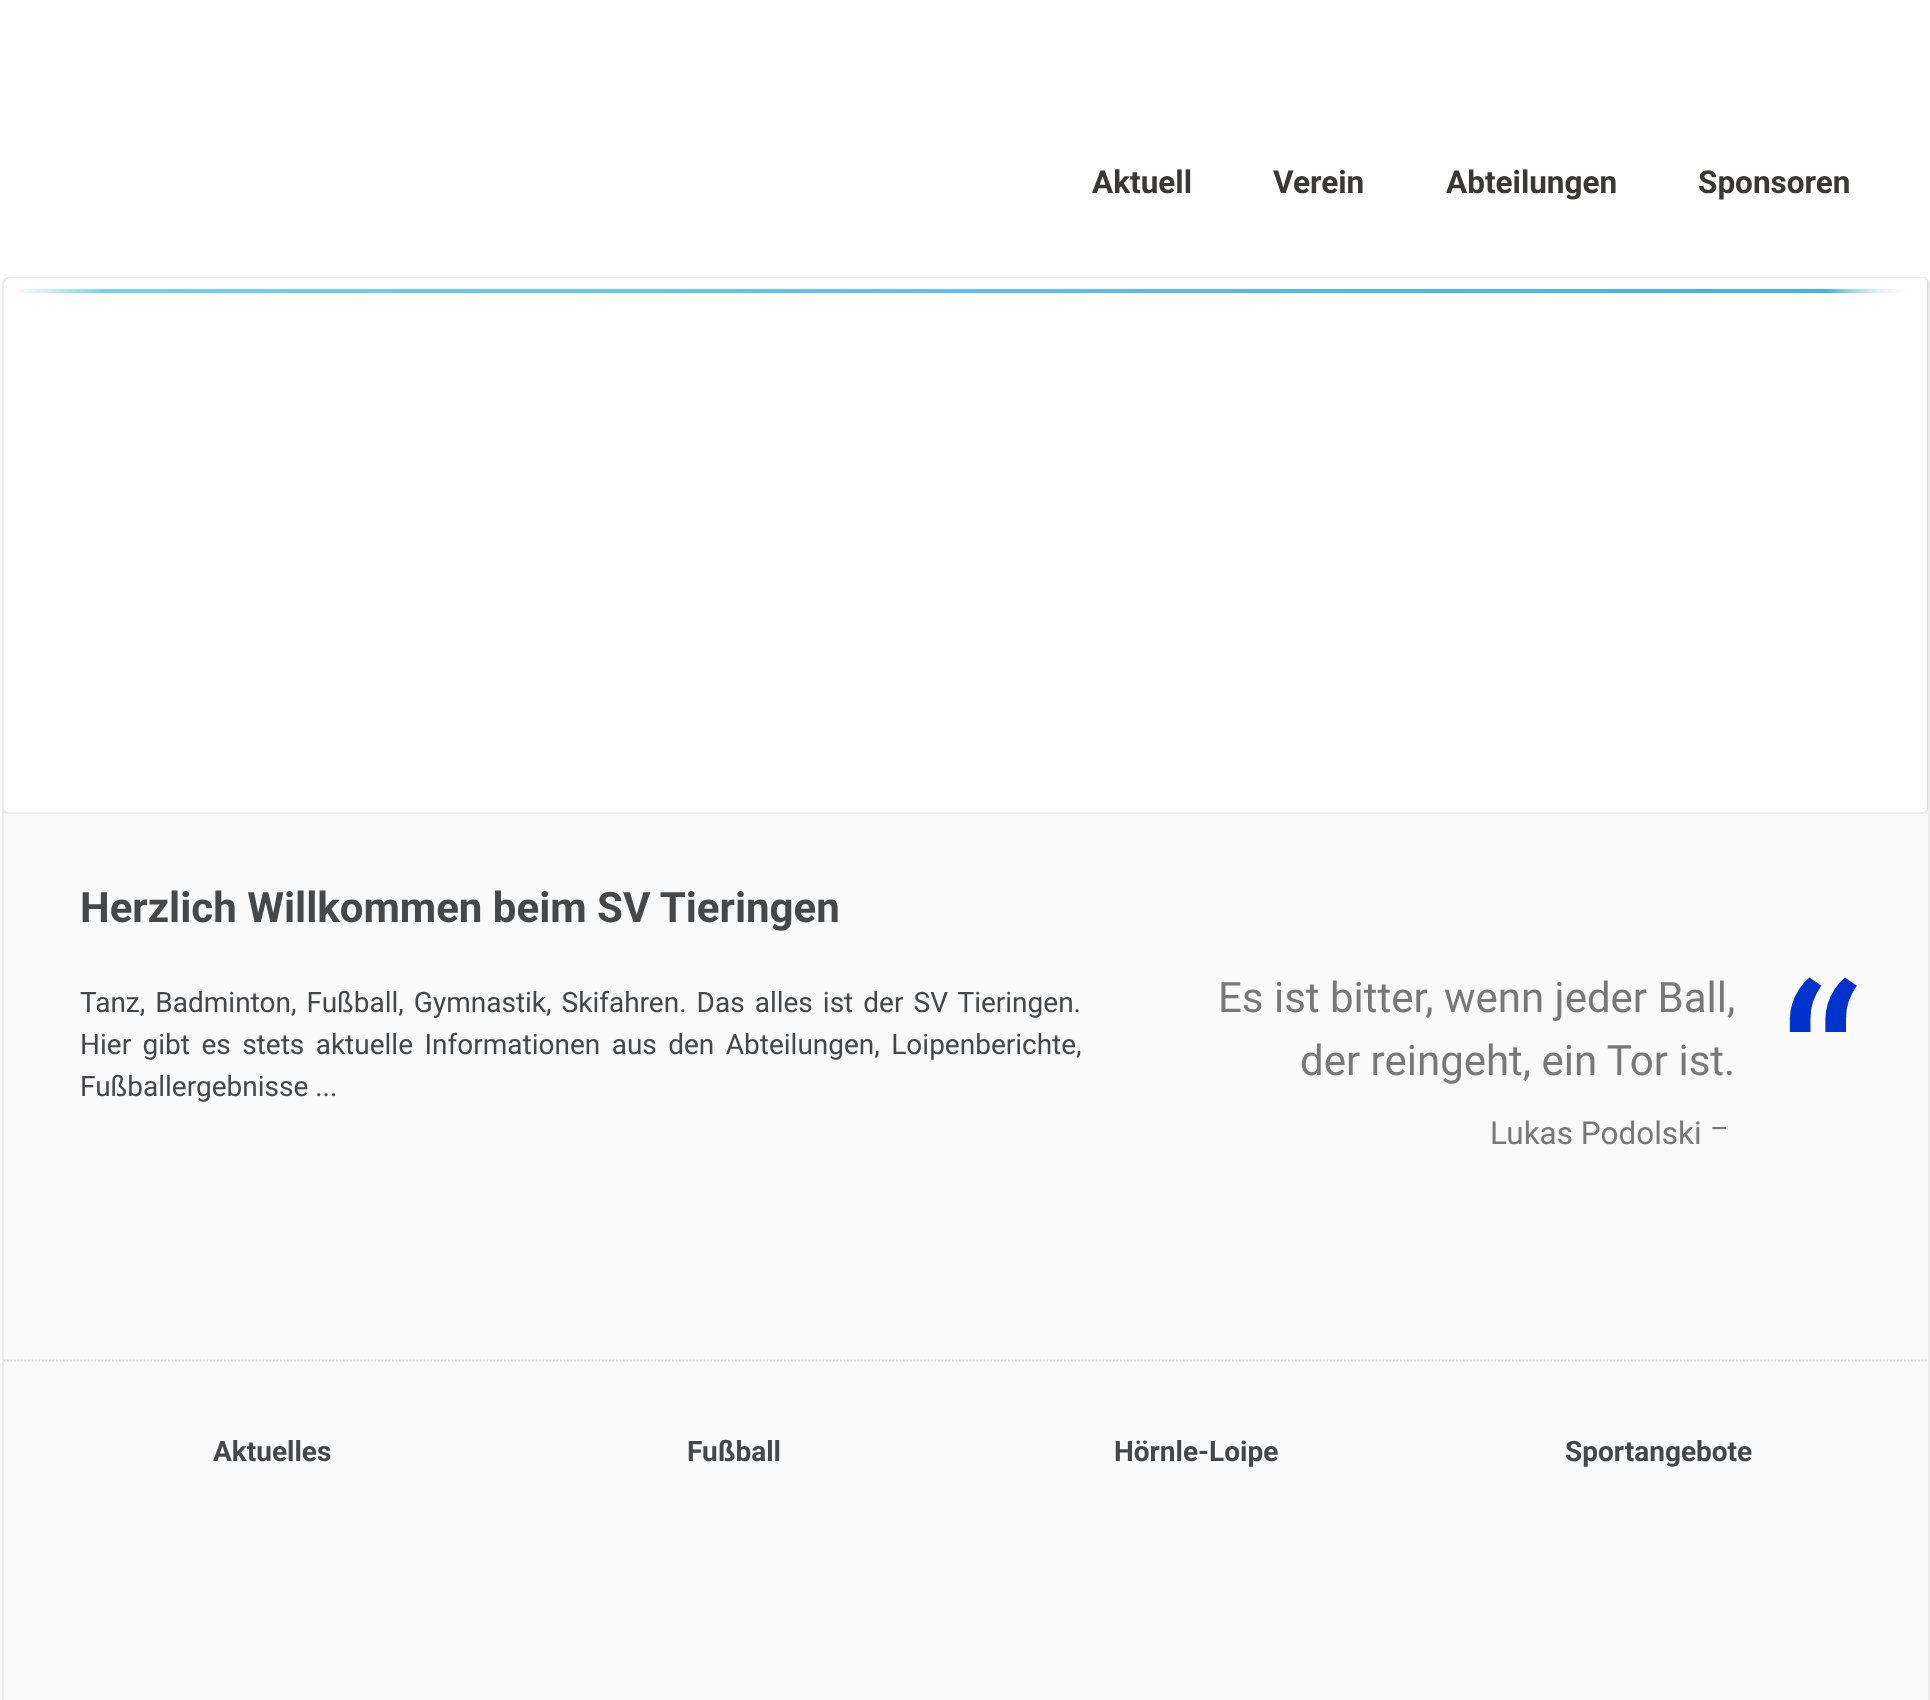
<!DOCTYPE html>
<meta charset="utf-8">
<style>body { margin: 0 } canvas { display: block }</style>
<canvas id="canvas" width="1930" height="1700"></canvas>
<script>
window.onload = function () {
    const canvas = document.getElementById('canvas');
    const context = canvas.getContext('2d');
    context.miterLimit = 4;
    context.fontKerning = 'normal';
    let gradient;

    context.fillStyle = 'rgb(255, 255, 255)';
    context.fillRect(0, 0, 1930, 1700);
    context.fillStyle = 'rgb(249, 249, 249)';
    context.beginPath();
    context.roundRect(4, 278, 1925, 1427, 5);
    context.fill();
    context.beginPath();
    context.roundRect(3, 278, 1926, 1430, 6);
    context.strokeStyle = 'rgba(0, 0, 0, 0.07)';
    context.lineWidth = 2;
    context.stroke();
    context.beginPath();
    context.roundRect(4, 278, 1925, 536, [7, 7, 0, 0]);
    context.fill();
    context.fillStyle = 'rgb(236, 236, 236)';
    context.fillRect(4, 812, 1925, 2);
    context.save();
    context.beginPath();
    context.moveTo(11, 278);
    context.lineTo(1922, 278);
    context.bezierCurveTo(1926, 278, 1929, 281, 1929, 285);
    context.lineTo(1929, 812);
    context.lineTo(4, 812);
    context.lineTo(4, 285);
    context.bezierCurveTo(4, 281, 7, 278, 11, 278);
    context.closePath();
    context.clip();
    context.fillStyle = 'rgba(0, 0, 0, 0.3)';
    context.filter = 'blur(2px)';
    context.beginPath();
    context.roundRect(4, 278, 1923, 534, 5);
    context.fill();
    context.filter = 'none';
    context.restore();
    context.save();
    context.beginPath();
    context.roundRect(4, 278, 1925, 534, [7, 7, 0, 0]);
    context.clip();
    context.fillStyle = 'rgb(255, 255, 255)';
    context.beginPath();
    context.roundRect(4, 278, 1923, 534, [7, 5, 5, 5]);
    context.fill();
    context.restore();
    context.fillStyle = 'rgb(255, 255, 255)';
    context.beginPath();
    context.moveTo(11, 278);
    context.bezierCurveTo(7, 278, 4, 281, 4, 285);
    context.lineTo(4, 807);
    context.bezierCurveTo(4, 810, 6, 812, 9, 812);
    context.lineTo(1922, 812);
    context.bezierCurveTo(1925, 812, 1927, 810, 1927, 807);
    context.lineTo(1927, 283);
    context.bezierCurveTo(1927, 280, 1925, 278, 1922, 278);
    context.closePath();
    context.moveTo(15, 289);
    context.lineTo(15, 801);
    context.lineTo(1916, 801);
    context.lineTo(1916, 289);
    context.closePath();
    context.fill('evenodd');
    gradient = context.createLinearGradient(14, 291, 1916, 290);
    gradient.addColorStop(0, 'rgb(119, 209, 242)');
    gradient.addColorStop(1, 'rgb(68, 177, 217)');
    context.fillStyle = gradient;
    context.fillRect(14, 289, 1902, 4);
    gradient = context.createLinearGradient(1829, 291, 1916, 291);
    gradient.addColorStop(0, 'rgb(69, 178, 218)');
    gradient.addColorStop(1, 'rgb(255, 255, 255)');
    context.fillStyle = gradient;
    context.beginPath();
    context.roundRect(1829, 289, 87, 4, 2);
    context.fill();
    context.save();
    context.beginPath();
    context.moveTo(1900, 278);
    context.lineTo(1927, 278);
    context.lineTo(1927, 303);
    context.lineTo(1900, 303);
    context.closePath();
    context.moveTo(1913, 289);
    context.lineTo(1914, 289);
    context.bezierCurveTo(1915, 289, 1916, 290, 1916, 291);
    context.bezierCurveTo(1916, 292, 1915, 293, 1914, 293);
    context.lineTo(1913, 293);
    context.bezierCurveTo(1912, 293, 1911, 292, 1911, 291);
    context.bezierCurveTo(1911, 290, 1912, 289, 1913, 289);
    context.closePath();
    context.clip('evenodd');
    context.fillStyle = 'rgba(255, 255, 255, 0.5)';
    context.filter = 'blur(2.5px)';
    context.beginPath();
    context.roundRect(1909, 287, 9, 7, 3.5);
    context.fill();
    context.filter = 'none';
    context.restore();
    context.fillStyle = 'rgba(255, 255, 255, 0.9)';
    context.beginPath();
    context.roundRect(1911, 289, 5, 4, 2);
    context.fill();
    gradient = context.createLinearGradient(12, 545, 107, 545);
    gradient.addColorStop(0, 'rgb(255, 255, 255)');
    gradient.addColorStop(1, 'rgba(255, 255, 255, 0)');
    context.fillStyle = gradient;
    context.fillRect(14, 289, 91, 4);
    gradient = context.createLinearGradient(1824, 545, 1918, 545);
    gradient.addColorStop(0, 'rgba(255, 255, 255, 0)');
    gradient.addColorStop(1, 'rgb(255, 255, 255)');
    context.fillStyle = gradient;
    context.fillRect(1826, 289, 90, 4);
    context.beginPath();
    context.moveTo(3.5, 1360.5);
    context.lineTo(1928.5, 1360.5);
    context.strokeStyle = 'rgb(218, 218, 218)';
    context.lineWidth = 1.8;
    context.setLineDash([1.75, 1.75]);
    context.stroke();
    context.font = 'bold 31.5px Roboto';
    context.fillStyle = 'rgb(59, 55, 55)';
    context.fillText('Aktuell', 1092, 193);
    context.fillText('Verein', 1273, 193);
    context.fillText('Abteilungen', 1446, 193);
    context.fillText('Sponsoren', 1698, 193);
    context.font = 'bold 42px Roboto';
    context.fillStyle = 'rgb(70, 71, 73)';
    context.fillText('Herzlich Willkommen beim SV Tieringen', 80, 922);
    context.wordSpacing = '3.1px';
    context.font = '28px Roboto';
    context.fillText('Tanz, Badminton, Fußball, Gymnastik, Skifahren. Das alles ist der SV Tieringen.', 80, 1012);
    context.wordSpacing = '4.5px';
    context.fillText('Hier gibt es stets aktuelle Informationen aus den Abteilungen, Loipenberichte,', 80, 1054);
    context.wordSpacing = '0px';
    context.fillText('Fußballergebnisse ...', 80, 1096);
    context.font = '42px Roboto';
    context.fillStyle = 'rgb(120, 120, 120)';
    context.fillText('Es ist bitter, wenn jeder Ball,', 1218, 1012);
    context.font = '231px Roboto';
    context.fillStyle = 'rgb(0, 51, 204)';
    context.fillText('“', 1778, 1153);
    context.font = '42px Roboto';
    context.fillStyle = 'rgb(120, 120, 120)';
    context.fillText('der reingeht, ein Tor ist.', 1300, 1075);
    context.font = '31.5px Roboto';
    context.fillText('Lukas Podolski', 1490, 1144);
    context.font = '28px Roboto';
    context.fillText('–', 1710, 1138);
    context.font = 'bold 28px Roboto';
    context.fillStyle = 'rgb(70, 71, 73)';
    context.fillText('Aktuelles', 213, 1461);
    context.fillText('Fußball', 687, 1461);
    context.fillText('Hörnle-Loipe', 1114, 1461);
    context.fillText('Sportangebote', 1565, 1461);
};
</script>
